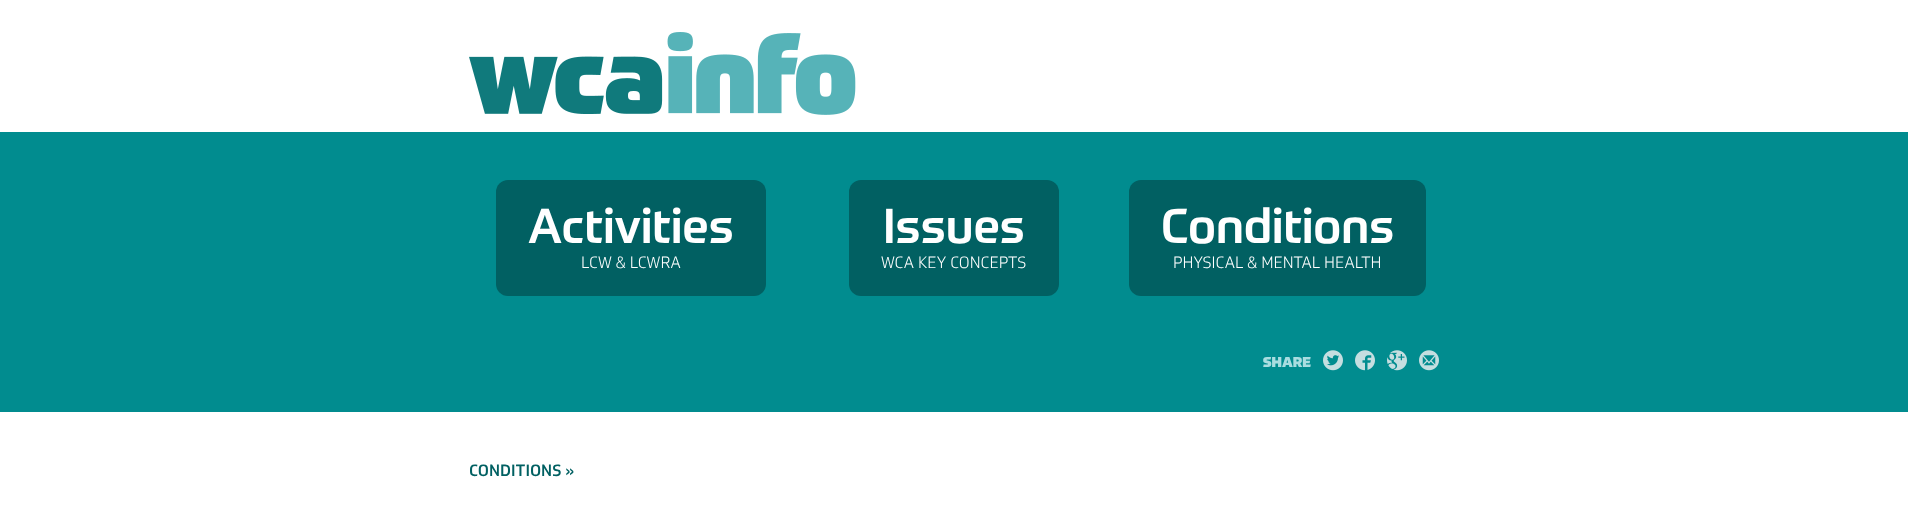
<!DOCTYPE html>
<meta charset="utf-8">
<style>body { margin: 0 } canvas { display: block }</style>
<canvas id="canvas" width="1908" height="524"></canvas>
<img id="img1" src="images/1.png" hidden>
<img id="img2" src="images/2.png" hidden>
<img id="img3" src="images/3.png" hidden>
<img id="img4" src="images/4.png" hidden>
<img id="img5" src="images/5.png" hidden>
<script>
window.onload = function () {
    const canvas = document.getElementById('canvas');
    const context = canvas.getContext('2d');
    context.miterLimit = 4;
    context.fontKerning = 'normal';

    context.fillStyle = 'rgb(255, 255, 255)';
    context.fillRect(0, 0, 1908, 524);
    context.drawImage(document.getElementById('img1'), 469, 32, 387, 83);
    context.fillStyle = 'rgb(1, 140, 143)';
    context.fillRect(0, 132, 1908, 280);
    context.fillStyle = 'rgb(1, 96, 98)';
    context.beginPath();
    context.roundRect(496, 180, 270, 116, 12);
    context.fill();
    context.beginPath();
    context.roundRect(849, 180, 210, 116, 12);
    context.fill();
    context.beginPath();
    context.roundRect(1129, 180, 297, 116, 12);
    context.fill();
    context.drawImage(document.getElementById('img2'), 1323, 350, 20, 21);
    context.drawImage(document.getElementById('img3'), 1355, 350, 20, 21);
    context.drawImage(document.getElementById('img4'), 1387, 350, 20, 21);
    context.drawImage(document.getElementById('img5'), 1419, 350, 20, 21);
    context.font = '500 48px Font';
    context.fillStyle = 'rgb(255, 255, 255)';
    context.fillText('Activities', 528, 243);
    context.font = '300 16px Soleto';
    context.fillText('LCW & LCWRA', 581, 268);
    context.font = '500 48px Font';
    context.fillText('Issues', 883, 243);
    context.font = '300 16px Soleto';
    context.fillText('WCA KEY CONCEPTS', 881, 268);
    context.font = '500 48px Font';
    context.fillText('Conditions', 1161, 243);
    context.font = '300 16px Soleto';
    context.fillText('PHYSICAL & MENTAL HEALTH', 1173, 268);
    context.font = '900 14px Font';
    context.fillStyle = 'rgb(169, 221, 224)';
    context.fillText('SHARE', 1263, 367);
    context.font = '500 16px Soleto';
    context.fillStyle = 'rgb(1, 96, 98)';
    context.fillText('CONDITIONS »', 469, 476);
};
</script>
